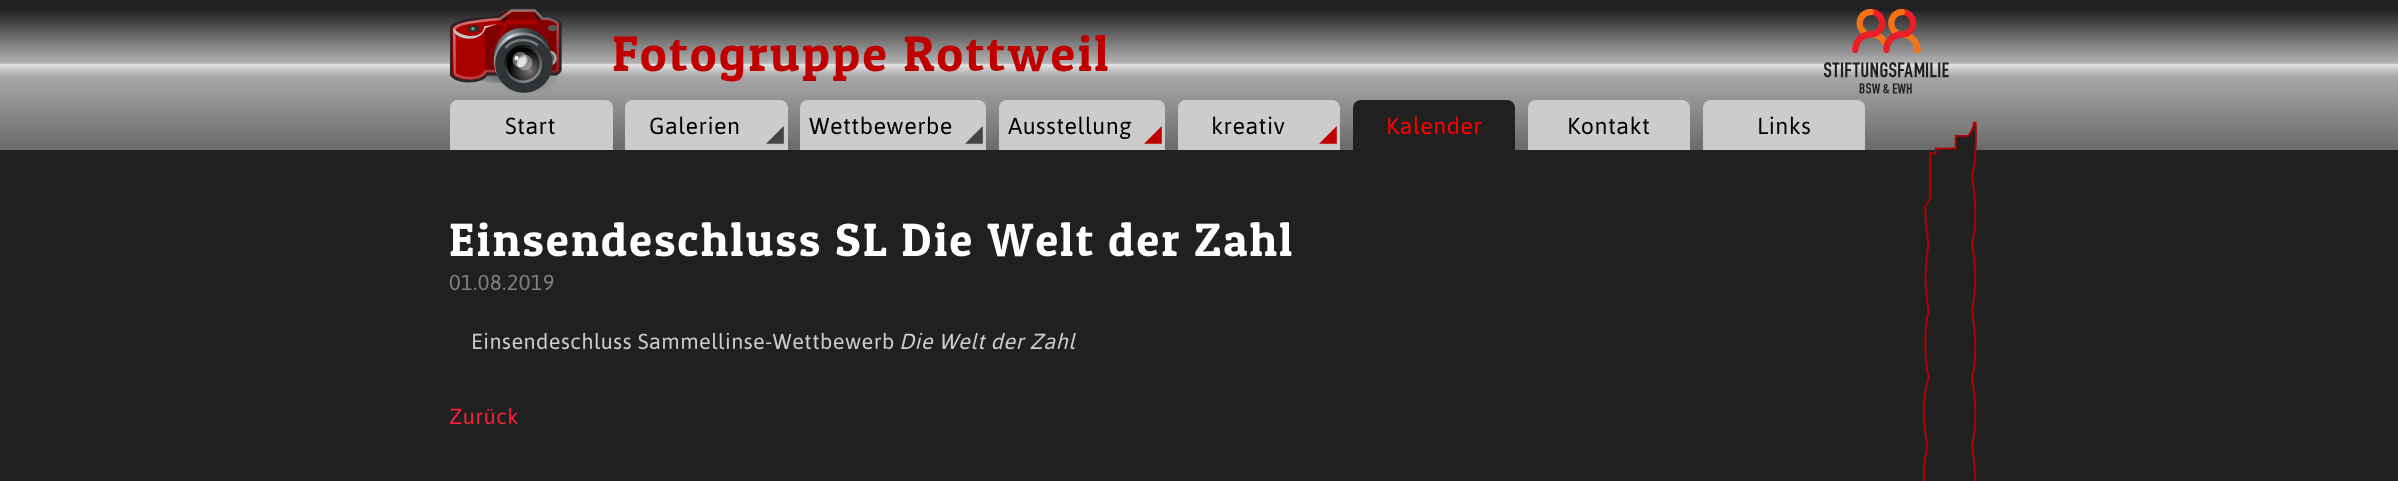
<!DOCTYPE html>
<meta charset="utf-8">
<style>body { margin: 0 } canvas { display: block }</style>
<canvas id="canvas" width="2398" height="481"></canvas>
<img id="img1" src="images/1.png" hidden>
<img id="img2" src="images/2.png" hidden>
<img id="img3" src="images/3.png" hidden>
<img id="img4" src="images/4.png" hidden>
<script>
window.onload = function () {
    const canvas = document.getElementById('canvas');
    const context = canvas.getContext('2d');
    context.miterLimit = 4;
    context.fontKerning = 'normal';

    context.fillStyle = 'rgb(32, 32, 32)';
    context.fillRect(0, 0, 2398, 481);
    context.drawImage(document.getElementById('img1'), 0, 11, 2398, 139);
    context.drawImage(document.getElementById('img2'), 450, 8, 112, 85);
    context.drawImage(document.getElementById('img3'), 1824, 9, 125, 85);
    context.fillStyle = 'rgb(204, 204, 204)';
    context.beginPath();
    context.roundRect(450, 100, 163, 50, [8, 8, 0, 0]);
    context.fill();
    context.beginPath();
    context.roundRect(625, 100, 163, 50, [8, 8, 0, 0]);
    context.fill();
    context.beginPath();
    context.roundRect(800, 100, 186, 50, [8, 8, 0, 0]);
    context.fill();
    context.beginPath();
    context.roundRect(999, 100, 166, 50, [8, 8, 0, 0]);
    context.fill();
    context.beginPath();
    context.roundRect(1178, 100, 162, 50, [8, 8, 0, 0]);
    context.fill();
    context.fillStyle = 'rgb(32, 32, 32)';
    context.beginPath();
    context.roundRect(1353, 100, 162, 50, [8, 8, 0, 0]);
    context.fill();
    context.fillStyle = 'rgb(204, 204, 204)';
    context.beginPath();
    context.roundRect(1528, 100, 162, 50, [8, 8, 0, 0]);
    context.fill();
    context.beginPath();
    context.roundRect(1703, 100, 162, 50, [8, 8, 0, 0]);
    context.fill();
    context.letterSpacing = '2.5px';
    context.font = '50px Patua One';
    context.fillStyle = 'rgb(191, 0, 0)';
    context.fillText('Fotogruppe Rottweil', 612, 71);
    context.letterSpacing = '0.45px';
    context.font = '23.25px Asap';
    context.fillStyle = 'rgb(0, 0, 0)';
    context.fillText('Start', 505, 134);
    context.fillText('Galerien', 649, 134);
    context.font = '23.25px DejaVu Sans';
    context.fillStyle = 'rgb(68, 68, 68)';
    context.fillText('◢', 766, 141);
    context.font = '23.25px Asap';
    context.fillStyle = 'rgb(0, 0, 0)';
    context.fillText('Wettbewerbe', 809, 134);
    context.font = '23.25px DejaVu Sans';
    context.fillStyle = 'rgb(68, 68, 68)';
    context.fillText('◢', 965, 141);
    context.font = '23.25px Asap';
    context.fillStyle = 'rgb(0, 0, 0)';
    context.fillText('Ausstellung', 1008, 134);
    context.font = '23.25px DejaVu Sans';
    context.fillStyle = 'rgb(191, 0, 0)';
    context.fillText('◢', 1144, 141);
    context.font = '23.25px Asap';
    context.fillStyle = 'rgb(0, 0, 0)';
    context.fillText('kreativ', 1211, 134);
    context.font = '23.25px DejaVu Sans';
    context.fillStyle = 'rgb(191, 0, 0)';
    context.fillText('◢', 1319, 141);
    context.font = '23.25px Asap';
    context.fillStyle = 'rgb(255, 0, 0)';
    context.fillText('Kalender', 1386, 134);
    context.fillStyle = 'rgb(0, 0, 0)';
    context.fillText('Kontakt', 1567, 134);
    context.fillText('Links', 1757, 134);
    context.font = '21.7px Asap';
    context.fillStyle = 'rgb(128, 128, 128)';
    context.fillText('01.08.2019', 449, 290);
    context.fillStyle = 'rgb(204, 204, 204)';
    context.fillText('Einsendeschluss Sammellinse-Wettbewerb', 471, 349);
    context.font = 'italic 21.7px Asap';
    context.fillText('Die Welt der Zahl', 899, 349);
    context.font = '21.7px Asap';
    context.fillStyle = 'rgb(241, 34, 58)';
    context.fillText('Zurück', 449, 424);
    context.drawImage(document.getElementById('img4'), 1277, 121, 700, 360);
    context.letterSpacing = '2.35px';
    context.font = '46.7px Patua One';
    context.fillStyle = 'rgb(255, 255, 255)';
    context.fillText('Einsendeschluss SL Die Welt der Zahl', 449, 256);
};
</script>
